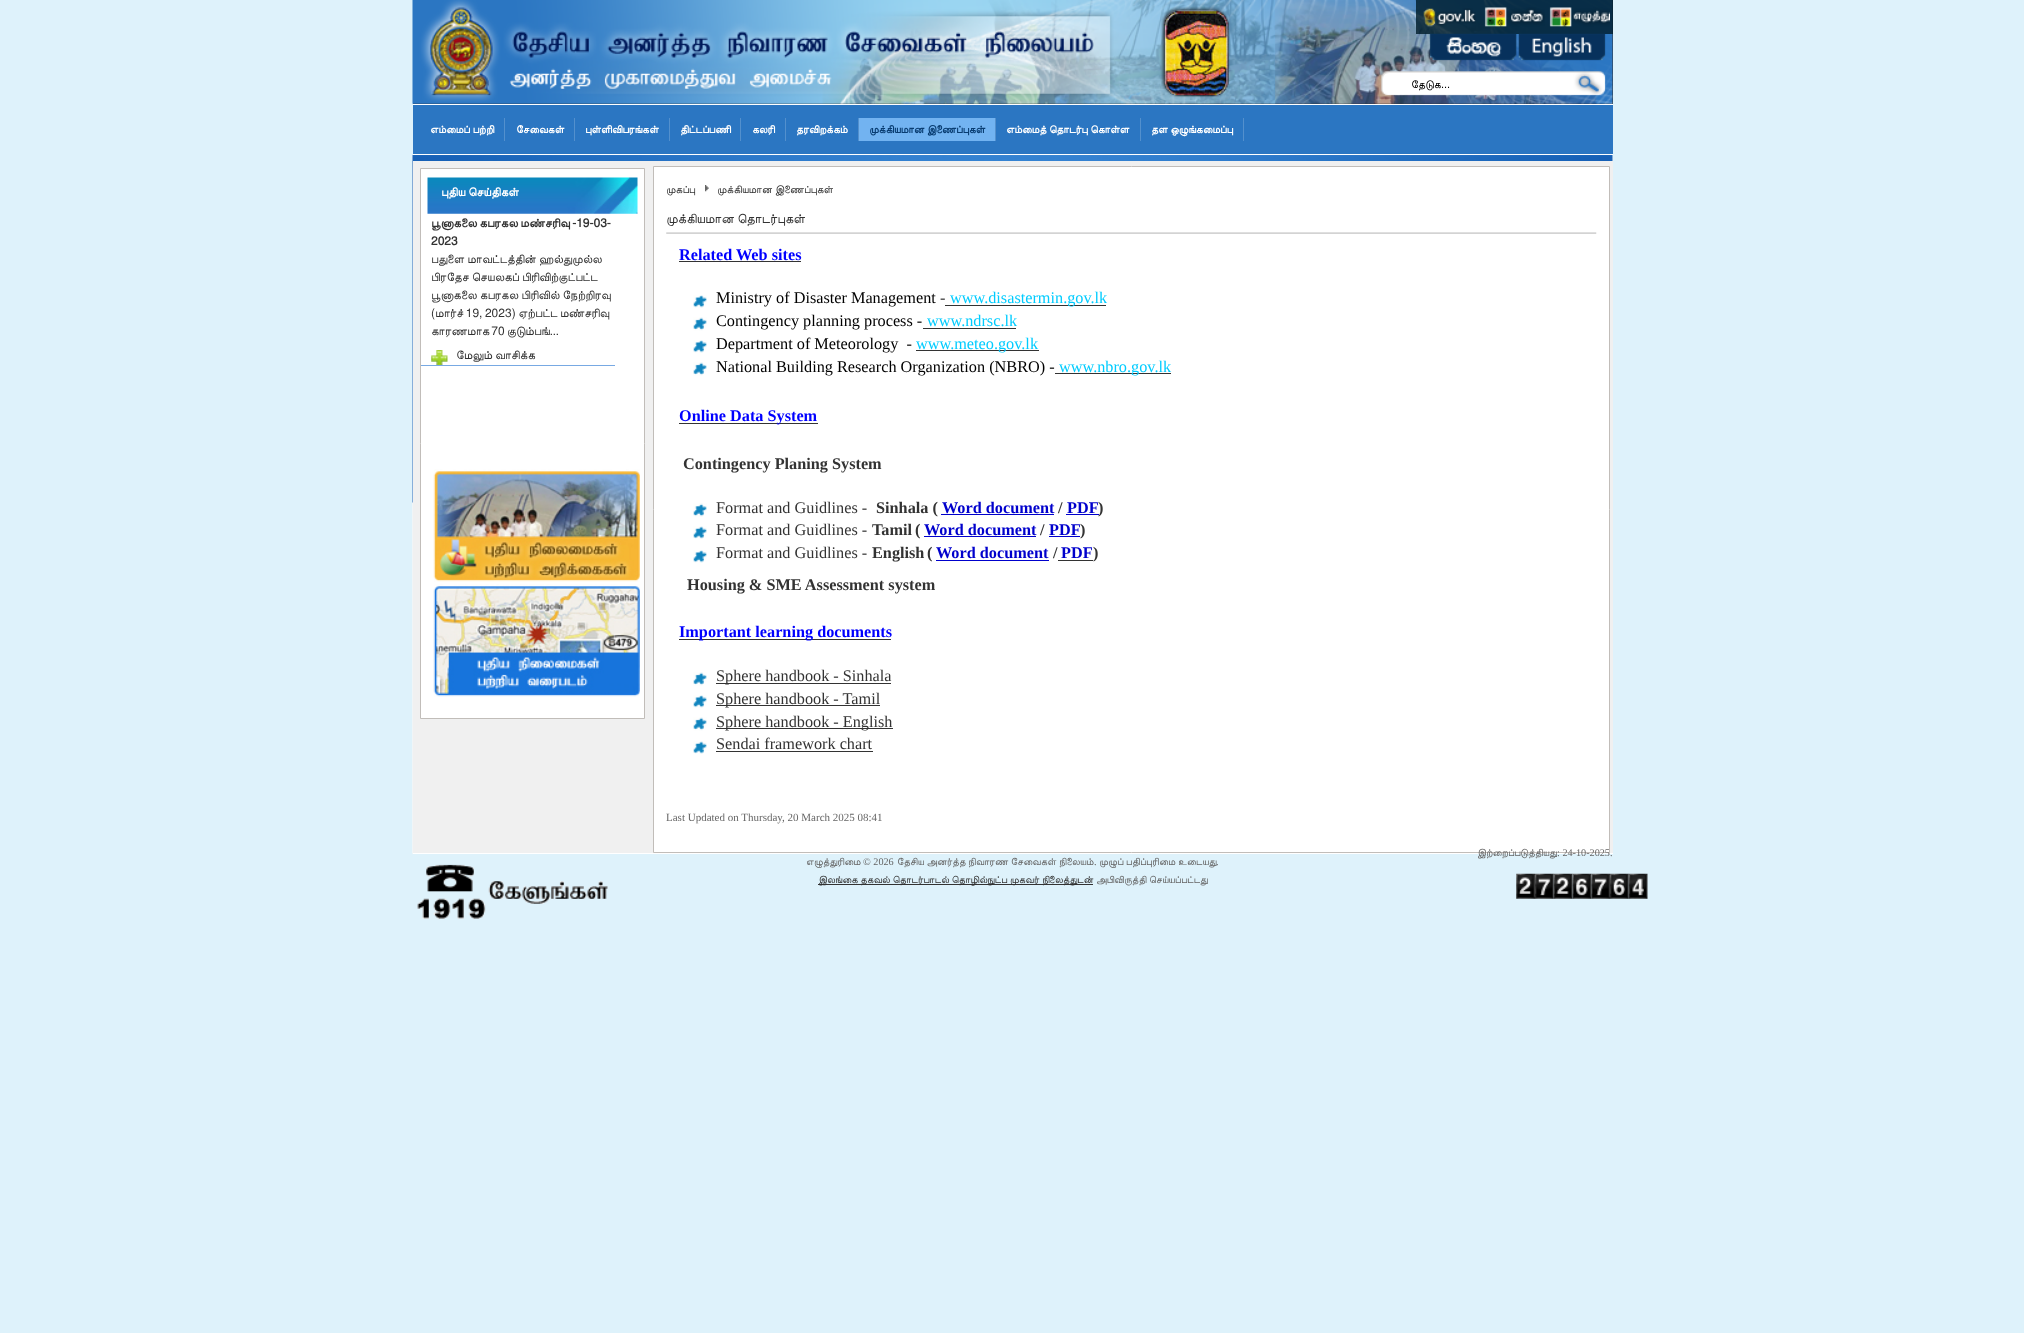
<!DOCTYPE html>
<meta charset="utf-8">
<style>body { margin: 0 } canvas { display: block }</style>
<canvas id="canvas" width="2024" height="1333"></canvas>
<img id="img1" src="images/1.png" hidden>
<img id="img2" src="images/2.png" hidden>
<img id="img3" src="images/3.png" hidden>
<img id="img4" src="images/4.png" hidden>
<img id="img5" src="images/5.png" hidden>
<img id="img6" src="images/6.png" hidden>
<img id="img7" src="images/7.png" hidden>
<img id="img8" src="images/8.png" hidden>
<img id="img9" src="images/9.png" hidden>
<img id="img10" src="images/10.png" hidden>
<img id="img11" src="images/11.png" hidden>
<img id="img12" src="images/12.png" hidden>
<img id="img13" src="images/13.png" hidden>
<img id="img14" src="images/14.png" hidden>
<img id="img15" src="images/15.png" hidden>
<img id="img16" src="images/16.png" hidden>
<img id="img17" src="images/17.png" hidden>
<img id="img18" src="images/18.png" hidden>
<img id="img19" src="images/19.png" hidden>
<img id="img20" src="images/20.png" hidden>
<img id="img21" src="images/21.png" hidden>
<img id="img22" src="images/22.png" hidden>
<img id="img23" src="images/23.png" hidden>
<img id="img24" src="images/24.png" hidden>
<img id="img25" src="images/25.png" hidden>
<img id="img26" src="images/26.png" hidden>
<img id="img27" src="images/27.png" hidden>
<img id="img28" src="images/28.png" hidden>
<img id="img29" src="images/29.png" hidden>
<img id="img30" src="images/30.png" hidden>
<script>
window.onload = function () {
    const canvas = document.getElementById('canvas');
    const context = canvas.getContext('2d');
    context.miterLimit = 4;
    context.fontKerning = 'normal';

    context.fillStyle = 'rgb(222, 242, 251)';
    context.fillRect(0, 0, 2024, 1333);
    context.fillStyle = 'rgb(51, 51, 51)';
    context.fillRect(413, 0, 1200, 104);
    context.fillStyle = 'rgb(255, 255, 255)';
    context.fillRect(413, 104, 1200, 1);
    context.drawImage(document.getElementById('img1'), 412, 0, 1201, 104);
    context.fillStyle = 'rgba(0, 28, 42, 0.81)';
    context.fillRect(1416, 0, 197, 34);
    context.drawImage(document.getElementById('img2'), 1423, 8, 53, 19);
    context.drawImage(document.getElementById('img3'), 1484, 7, 61, 20);
    context.drawImage(document.getElementById('img4'), 1549, 7, 61, 20);
    context.drawImage(document.getElementById('img5'), 1429, 33, 88, 28);
    context.drawImage(document.getElementById('img6'), 1518, 33, 88, 28);
    context.drawImage(document.getElementById('img7'), 1381, 71, 225, 25);
    context.fillStyle = 'rgb(43, 118, 194)';
    context.fillRect(413, 105, 1200, 49);
    context.fillStyle = 'rgb(255, 255, 255)';
    context.fillRect(413, 154, 1200, 1);
    context.fillStyle = 'rgb(83, 144, 205)';
    context.fillRect(504, 118, 1, 23);
    context.fillRect(574, 118, 1, 23);
    context.fillRect(669, 118, 1, 23);
    context.fillRect(740, 118, 1, 23);
    context.fillRect(785, 118, 1, 23);
    context.fillRect(858, 118, 1, 23);
    context.fillStyle = 'rgb(114, 179, 241)';
    context.fillRect(859, 118, 136, 23);
    context.fillStyle = 'rgb(83, 144, 205)';
    context.fillRect(995, 118, 1, 23);
    context.fillRect(1140, 118, 1, 23);
    context.fillRect(1243, 118, 1, 23);
    context.drawImage(document.getElementById('img8'), 412, 155, 1201, 699);
    context.drawImage(document.getElementById('img9'), 412, 155, 1201, 90);
    context.drawImage(document.getElementById('img10'), 412, 155, 1201, 699);
    context.drawImage(document.getElementById('img11'), 412, 155, 1201, 348);
    context.fillStyle = 'rgb(255, 255, 255)';
    context.fillRect(413, 853, 1200, 1);
    context.fillStyle = 'rgb(240, 240, 240)';
    context.fillRect(413, 161, 1200, 692);
    context.fillStyle = 'rgb(255, 255, 255)';
    context.beginPath();
    context.rect(420.5, 168.5, 224, 550);
    context.fill();
    context.strokeStyle = 'rgb(193, 189, 185)';
    context.stroke();
    context.drawImage(document.getElementById('img12'), 427, 177, 211, 37);
    context.fillStyle = 'rgb(120, 169, 227)';
    context.fillRect(421, 365, 194, 1);
    context.drawImage(document.getElementById('img13'), 431, 350, 17, 15);
    context.drawImage(document.getElementById('img14'), 433, 469, 207, 113);
    context.drawImage(document.getElementById('img15'), 433, 584, 207, 113);
    context.fillStyle = 'rgb(255, 255, 255)';
    context.beginPath();
    context.rect(653.5, 166.5, 956, 686);
    context.fill();
    context.stroke();
    context.drawImage(document.getElementById('img16'), 705, 185, 4, 7);
    context.drawImage(document.getElementById('img17'), 666, 232, 931, 2);
    context.fillStyle = 'rgb(51, 51, 51)';
    context.fillRect(679, 261, 122, 1);
    context.drawImage(document.getElementById('img18'), 693, 295, 14, 13);
    context.fillRect(945, 305, 161, 1);
    context.drawImage(document.getElementById('img19'), 693, 317, 14, 14);
    context.fillRect(923, 328, 93, 1);
    context.drawImage(document.getElementById('img20'), 693, 340, 14, 13);
    context.fillRect(916, 350, 123, 1);
    context.drawImage(document.getElementById('img19'), 693, 362, 14, 14);
    context.fillRect(1055, 373, 116, 1);
    context.fillRect(679, 423, 139, 1);
    context.drawImage(document.getElementById('img21'), 693, 503, 14, 14);
    context.fillStyle = 'rgb(0, 0, 204)';
    context.fillRect(941, 514, 113, 1);
    context.fillRect(1066, 514, 33, 1);
    context.drawImage(document.getElementById('img22'), 693, 526, 14, 13);
    context.fillRect(924, 536, 112, 1);
    context.fillRect(1049, 536, 31, 1);
    context.drawImage(document.getElementById('img20'), 693, 550, 14, 13);
    context.fillRect(936, 560, 113, 1);
    context.fillStyle = 'rgb(51, 51, 51)';
    context.fillRect(1058, 560, 35, 1);
    context.fillRect(679, 639, 212, 1);
    context.drawImage(document.getElementById('img19'), 693, 672, 14, 14);
    context.fillRect(716, 683, 175, 1);
    context.drawImage(document.getElementById('img20'), 693, 695, 14, 13);
    context.fillRect(716, 705, 164, 1);
    context.drawImage(document.getElementById('img19'), 693, 717, 14, 14);
    context.fillRect(716, 728, 177, 1);
    context.drawImage(document.getElementById('img22'), 693, 741, 14, 13);
    context.fillRect(716, 751, 157, 1);
    context.drawImage(document.getElementById('img23'), 417, 864, 191, 55);
    context.fillRect(818, 884, 275, 1);
    context.drawImage(document.getElementById('img24'), 1516, 873, 19, 26);
    context.drawImage(document.getElementById('img25'), 1535, 873, 19, 26);
    context.drawImage(document.getElementById('img26'), 1553, 873, 20, 26);
    context.drawImage(document.getElementById('img27'), 1572, 873, 20, 26);
    context.drawImage(document.getElementById('img28'), 1591, 873, 19, 26);
    context.drawImage(document.getElementById('img29'), 1610, 873, 19, 26);
    context.drawImage(document.getElementById('img30'), 1628, 873, 20, 26);
    context.font = '11px FreeSans';
    context.fillStyle = 'rgb(0, 0, 0)';
    context.fillText('தேடுக', 1411, 88);
    context.font = '11px Liberation Sans';
    context.fillText('...', 1441, 88);
    context.font = 'bold 10.75px FreeSans';
    context.fillStyle = 'rgb(255, 255, 255)';
    context.fillText('எம்மைப் பற்றி', 430, 133);
    context.fillText('சேவைகள்', 516, 133);
    context.fillText('புள்ளிவிபரங்கள்', 585, 133);
    context.fillText('திட்டப்பணி', 680, 133);
    context.fillText('கலரி', 752, 133);
    context.fillText('தரவிறக்கம்', 796, 133);
    context.fillStyle = 'rgb(9, 61, 114)';
    context.fillText('முக்கியமான இணைப்புகள்', 869, 133);
    context.fillStyle = 'rgb(255, 255, 255)';
    context.fillText('எம்மைத் தொடர்பு கொள்ள', 1006, 133);
    context.fillText('தள ஒழுங்கமைப்பு', 1151, 133);
    context.font = 'bold 12px FreeSans';
    context.fillText('புதிய செய்திகள்', 441, 196);
    context.wordSpacing = '-0.5px';
    context.fillStyle = 'rgb(51, 51, 51)';
    context.fillText('பூனாகலை கபரகல மண்சரிவு -19-03-', 431, 227);
    context.wordSpacing = '0px';
    context.fillText('2023', 431, 245);
    context.font = '12px FreeSans';
    context.fillText('பதுளை மாவட்டத்தின் ஹல்துமுல்ல', 431, 263);
    context.fillText('பிரதேச செயலகப் பிரிவிற்குட்பட்ட', 431, 281);
    context.fillText('பூனாகலை கபரகல பிரிவில் நேற்றிரவு', 431, 299);
    context.wordSpacing = '-0.5px';
    context.fillText('(மார்ச் 19, 2023) ஏற்பட்ட மண்சரிவு', 431, 317);
    context.wordSpacing = '-1px';
    context.fillText('காரணமாக 70 குடும்பங்...', 431, 335);
    context.wordSpacing = '0px';
    context.fillText('மேலும் வாசிக்க', 456, 359);
    context.font = '10.75px FreeSans';
    context.fillText('முகப்பு', 666, 193);
    context.fillText('முக்கியமான இணைப்புகள்', 717, 193);
    context.font = '13.25px FreeSans';
    context.fillText('முக்கியமான தொடர்புகள்', 666, 223);
    context.font = 'bold 16.25px Liberation Serif';
    context.fillStyle = 'rgb(0, 0, 255)';
    context.fillText('Related Web sites', 679, 260);
    context.font = '16.25px Liberation Serif';
    context.fillStyle = 'rgb(0, 0, 0)';
    context.fillText('Ministry of Disaster Management', 716, 303);
    context.fillStyle = 'rgb(51, 51, 51)';
    context.fillText('-', 940, 303);
    context.fillStyle = 'rgb(0, 204, 255)';
    context.fillText('www.disastermin.gov.lk', 950, 303);
    context.fillStyle = 'rgb(0, 0, 0)';
    context.fillText('Contingency planning process -', 716, 326);
    context.fillStyle = 'rgb(0, 204, 255)';
    context.fillText('www.ndrsc.lk', 927, 326);
    context.fillStyle = 'rgb(0, 0, 0)';
    context.fillText('Department of Meteorology  -', 716, 349);
    context.fillStyle = 'rgb(0, 204, 255)';
    context.fillText('www.meteo.gov.lk', 916, 349);
    context.fillStyle = 'rgb(0, 0, 0)';
    context.fillText('National Building Research Organization (NBRO) -', 716, 372);
    context.fillStyle = 'rgb(0, 204, 255)';
    context.fillText('www.nbro.gov.lk', 1059, 372);
    context.font = 'bold 16.25px Liberation Serif';
    context.fillStyle = 'rgb(0, 0, 255)';
    context.fillText('Online Data System', 679, 421);
    context.fillStyle = 'rgb(51, 51, 51)';
    context.fillText('Contingency Planing System', 683, 469);
    context.font = '16.25px Liberation Serif';
    context.fillText('Format and Guidlines -', 716, 513);
    context.font = 'bold 16.25px Liberation Serif';
    context.fillText('Sinhala (', 876, 513);
    context.fillStyle = 'rgb(0, 0, 204)';
    context.fillText('Word document', 942, 513);
    context.fillStyle = 'rgb(51, 51, 51)';
    context.fillText('/', 1058, 513);
    context.fillStyle = 'rgb(0, 0, 204)';
    context.fillText('PDF', 1067, 513);
    context.fillStyle = 'rgb(51, 51, 51)';
    context.fillText(')', 1098, 513);
    context.font = '16.25px Liberation Serif';
    context.fillText('Format and Guidlines -', 716, 535);
    context.font = 'bold 16.25px Liberation Serif';
    context.fillText('Tamil', 872, 535);
    context.fillText('(', 915, 535);
    context.fillStyle = 'rgb(0, 0, 204)';
    context.fillText('Word document', 924, 535);
    context.fillStyle = 'rgb(51, 51, 51)';
    context.fillText('/', 1040, 535);
    context.fillStyle = 'rgb(0, 0, 204)';
    context.fillText('PDF', 1049, 535);
    context.fillStyle = 'rgb(51, 51, 51)';
    context.fillText(')', 1080, 535);
    context.font = '16.25px Liberation Serif';
    context.fillText('Format and Guidlines -', 716, 558);
    context.font = 'bold 16.25px Liberation Serif';
    context.fillText('English', 872, 558);
    context.fillText('(', 927, 558);
    context.fillStyle = 'rgb(0, 0, 204)';
    context.fillText('Word document', 936, 558);
    context.fillStyle = 'rgb(51, 51, 51)';
    context.fillText('/', 1053, 558);
    context.fillStyle = 'rgb(0, 0, 204)';
    context.fillText('PDF', 1061, 558);
    context.fillStyle = 'rgb(51, 51, 51)';
    context.fillText(')', 1093, 558);
    context.fillText('Housing & SME Assessment system', 687, 590);
    context.fillStyle = 'rgb(0, 0, 255)';
    context.fillText('Important learning documents', 679, 637);
    context.font = '16.25px Liberation Serif';
    context.fillStyle = 'rgb(51, 51, 51)';
    context.fillText('Sphere handbook - Sinhala', 716, 681);
    context.fillText('Sphere handbook - Tamil', 716, 704);
    context.fillText('Sphere handbook - English', 716, 727);
    context.fillText('Sendai framework chart', 716, 749);
    context.font = '11px Liberation Serif';
    context.fillStyle = 'rgb(102, 102, 102)';
    context.fillText('Last Updated on Thursday, 20 March 2025 08:41', 666, 821);
    context.font = '10.2px FreeSans';
    context.fillText('இற்றைப்படுத்தியது', 1477, 856);
    context.font = '10.2px Liberation Serif';
    context.fillText(': 24-10-2025.', 1557, 856);
    context.font = '10.2px FreeSans';
    context.fillText('எழுத்துரிமை', 806, 865);
    context.font = '10.2px Liberation Serif';
    context.fillText('© 2026', 863, 865);
    context.font = '10.2px FreeSans';
    context.fillText('தேசிய அனர்த்த நிவாரண சேவைகள் நிலையம்', 897, 865);
    context.font = '10.2px Liberation Serif';
    context.fillText('.', 1094, 865);
    context.font = '10.2px FreeSans';
    context.fillText('முழுப் பதிப்புரிமை உடையது', 1099, 865);
    context.font = '10.2px Liberation Serif';
    context.fillText('.', 1216, 865);
    context.font = '10.2px FreeSans';
    context.fillStyle = 'rgb(51, 51, 51)';
    context.fillText('இலங்கை தகவல் தொடர்பாடல் தொழில்நுட்ப முகவர் நிலைத்துடன்', 818, 883);
    context.fillStyle = 'rgb(102, 102, 102)';
    context.fillText('அபிவிருத்தி செய்யப்பட்டது', 1096, 883);
};
</script>
